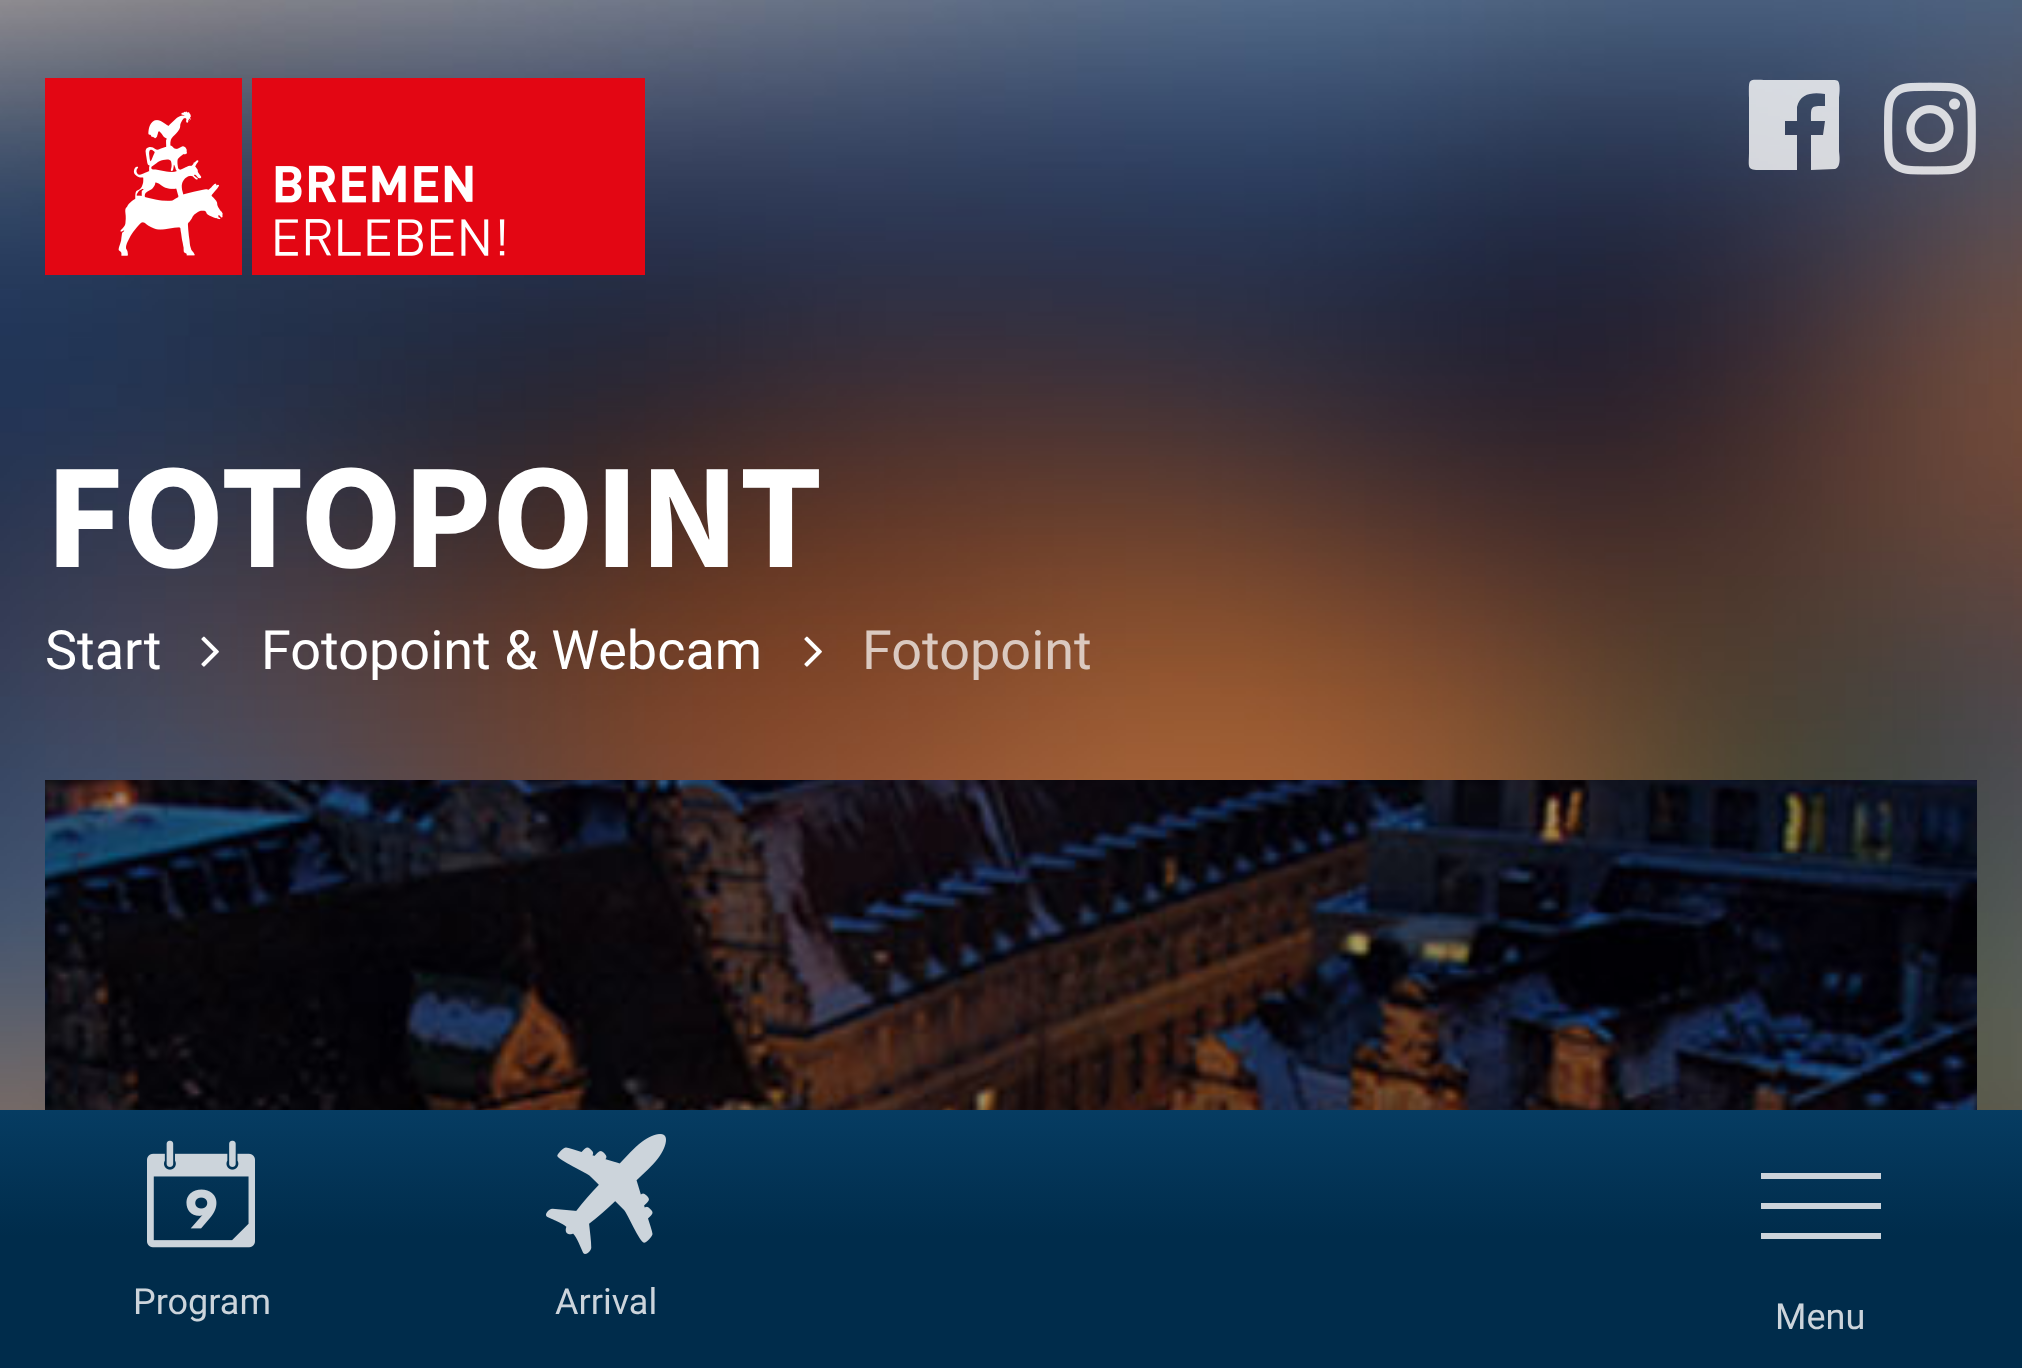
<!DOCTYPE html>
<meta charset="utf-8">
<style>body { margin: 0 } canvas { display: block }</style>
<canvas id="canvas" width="2022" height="1368"></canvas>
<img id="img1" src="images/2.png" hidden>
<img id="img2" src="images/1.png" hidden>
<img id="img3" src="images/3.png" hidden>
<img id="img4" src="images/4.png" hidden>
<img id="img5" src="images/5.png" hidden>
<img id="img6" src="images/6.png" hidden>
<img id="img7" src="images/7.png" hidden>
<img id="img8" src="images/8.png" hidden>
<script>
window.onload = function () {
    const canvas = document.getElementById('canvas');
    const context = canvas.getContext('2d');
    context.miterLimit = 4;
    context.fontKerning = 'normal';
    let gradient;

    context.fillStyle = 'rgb(255, 255, 255)';
    context.fillRect(0, 0, 2022, 1368);
    context.drawImage(document.getElementById('img1'), 0, 0, 2022, 1110);
    context.drawImage(document.getElementById('img2'), 45, 78, 600, 197);
    context.fillStyle = 'rgba(255, 255, 255, 0.8)';
    context.beginPath();
    context.moveTo(1834, 80);
    context.bezierCurveTo(1835, 80, 1837, 80, 1838, 81);
    context.bezierCurveTo(1841, 85, 1839, 97, 1839, 98);
    context.lineTo(1839, 151);
    context.bezierCurveTo(1839, 153, 1842, 167, 1835, 169);
    context.lineTo(1811, 170);
    context.lineTo(1811, 135);
    context.lineTo(1823, 135);
    context.lineTo(1825, 121);
    context.lineTo(1811, 121);
    context.bezierCurveTo(1811, 106, 1810, 106, 1825, 106);
    context.lineTo(1825, 94);
    context.bezierCurveTo(1813, 92, 1800, 93, 1797, 107);
    context.lineTo(1797, 121);
    context.lineTo(1785, 121);
    context.lineTo(1785, 135);
    context.lineTo(1797, 135);
    context.lineTo(1797, 170);
    context.lineTo(1761, 170);
    context.bezierCurveTo(1746, 170, 1749, 168, 1749, 151);
    context.lineTo(1749, 98);
    context.bezierCurveTo(1749, 77, 1747, 80, 1767, 80);
    context.closePath();
    context.fill();
    context.drawImage(document.getElementById('img3'), 1884, 82, 92, 93);
    context.drawImage(document.getElementById('img4'), 201, 636, 18, 31);
    context.drawImage(document.getElementById('img5'), 804, 636, 18, 31);
    gradient = context.createLinearGradient(1011, 1110, 1011, 1368);
    gradient.addColorStop(0, 'rgb(6, 60, 98)');
    gradient.addColorStop(0.49, 'rgb(0, 44, 75)');
    context.fillStyle = gradient;
    context.fillRect(0, 1110, 2022, 258);
    context.drawImage(document.getElementById('img6'), 147, 1140, 108, 108);
    context.drawImage(document.getElementById('img7'), 546, 1134, 120, 120);
    context.fillStyle = 'rgb(204, 212, 219)';
    context.fillRect(1761, 1203, 120, 6);
    context.fillRect(1761, 1173, 120, 6);
    context.fillRect(1761, 1233, 120, 6);
    context.drawImage(document.getElementById('img8'), 45, 780, 1932, 330);
    context.font = 'bold 150px Source Sans Pro';
    context.fillStyle = 'rgb(255, 255, 255)';
    context.fillText('FOTOPOINT', 45, 567);
    context.font = '54px Roboto';
    context.fillText('Start', 45, 669);
    context.fillText('Fotopoint & Webcam', 261, 669);
    context.fillStyle = 'rgb(218, 201, 192)';
    context.fillText('Fotopoint', 862, 669);
    context.font = '36px Roboto';
    context.fillStyle = 'rgb(204, 212, 219)';
    context.fillText('Program', 133, 1314);
    context.fillText('Arrival', 555, 1314);
    context.fillText('Menu', 1775, 1329);
};
</script>
